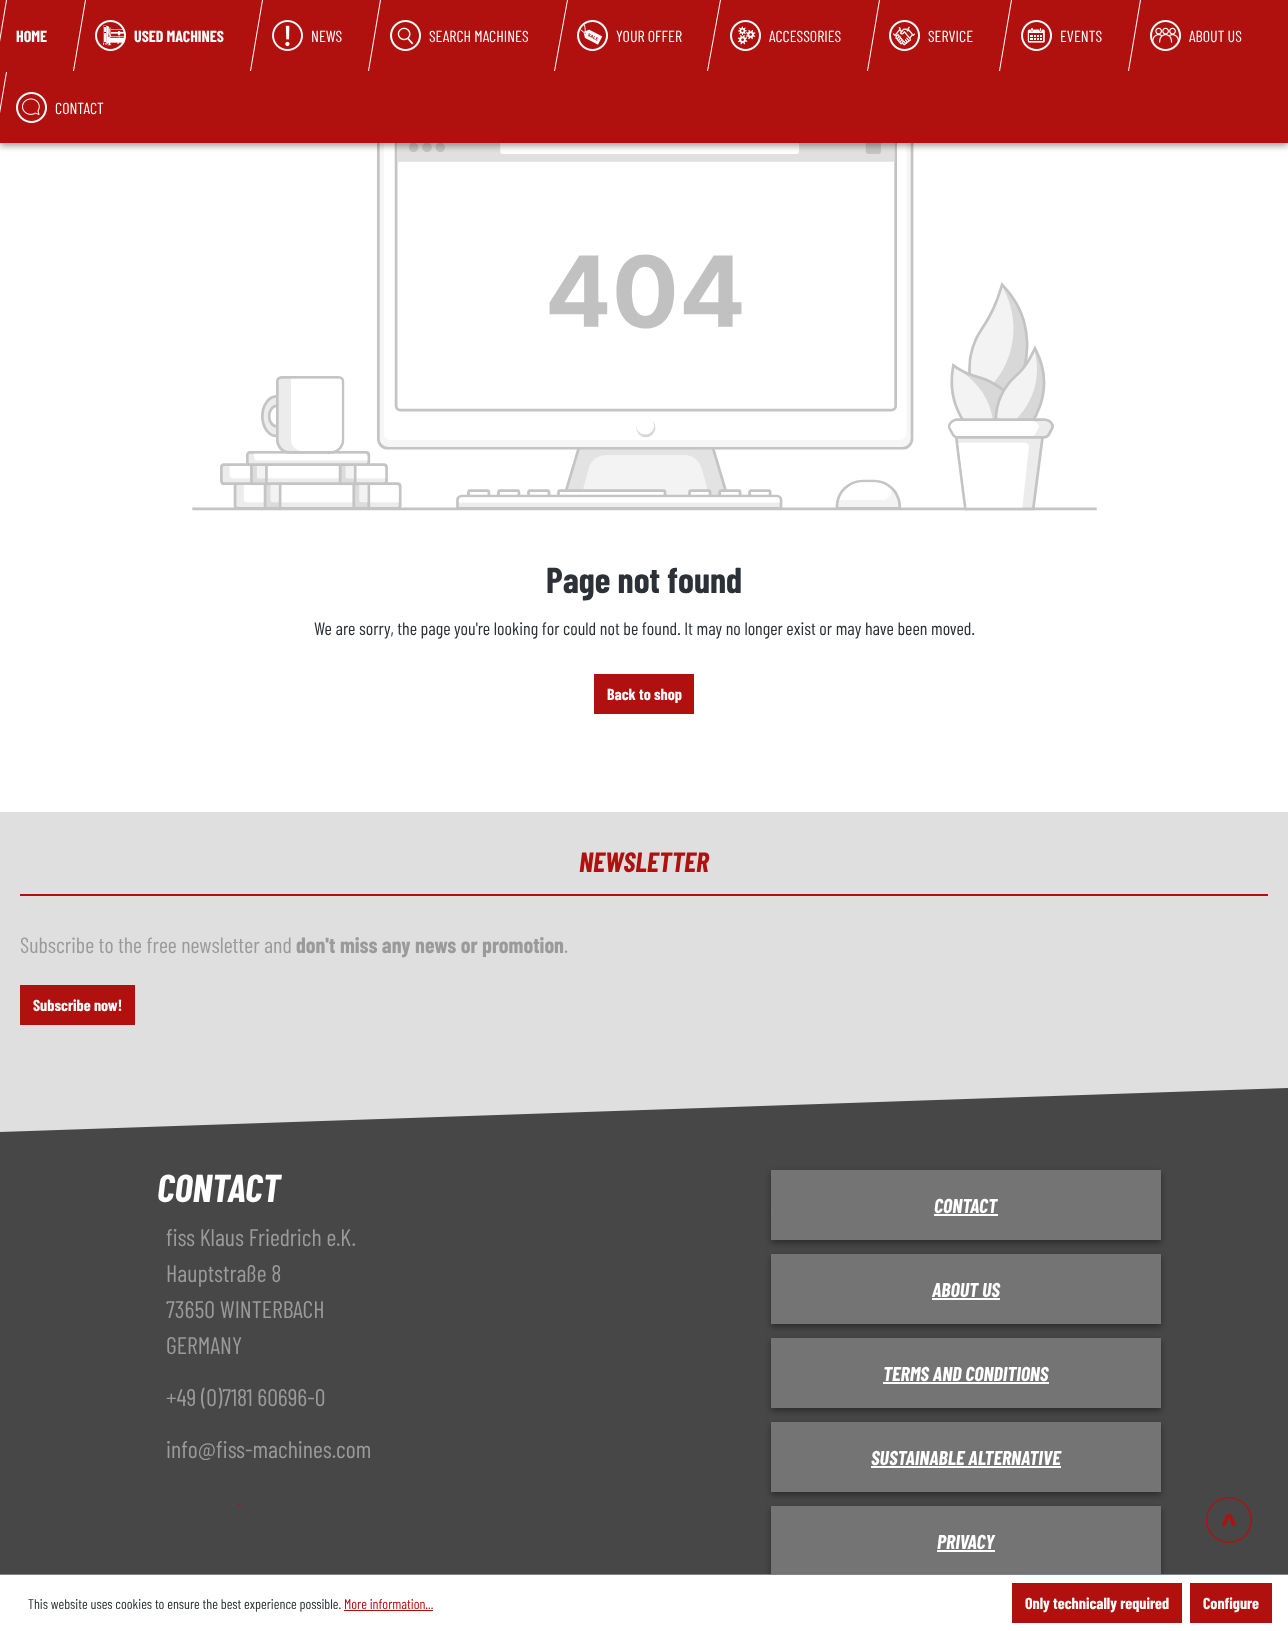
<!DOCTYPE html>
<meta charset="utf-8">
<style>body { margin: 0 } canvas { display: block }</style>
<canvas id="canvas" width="1288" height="1631"></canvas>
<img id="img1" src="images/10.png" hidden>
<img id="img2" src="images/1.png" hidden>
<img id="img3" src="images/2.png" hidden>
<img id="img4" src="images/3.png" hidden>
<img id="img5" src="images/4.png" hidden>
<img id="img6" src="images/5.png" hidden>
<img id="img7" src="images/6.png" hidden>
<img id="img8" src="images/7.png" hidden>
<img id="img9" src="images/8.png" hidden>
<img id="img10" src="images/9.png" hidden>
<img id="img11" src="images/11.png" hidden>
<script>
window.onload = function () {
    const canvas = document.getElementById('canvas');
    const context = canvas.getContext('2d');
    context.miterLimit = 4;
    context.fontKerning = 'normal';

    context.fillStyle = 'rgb(255, 255, 255)';
    context.fillRect(0, 0, 1288, 1631);
    context.drawImage(document.getElementById('img1'), 192, 143, 905, 368);
    context.fillStyle = 'rgba(0, 0, 0, 0.37)';
    context.filter = 'blur(3px)';
    context.beginPath();
    context.rect(0, 3, 1288, 143);
    context.fill();
    context.filter = 'none';
    context.fillStyle = 'rgb(177, 17, 14)';
    context.fillRect(0, 0, 1288, 143);
    context.fillStyle = 'rgb(255, 255, 255)';
    context.beginPath();
    context.moveTo(6, 0);
    context.lineTo(7, 0);
    context.lineTo(-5, 72);
    context.lineTo(-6, 72);
    context.closePath();
    context.fill();
    context.beginPath();
    context.moveTo(85, 0);
    context.lineTo(86, 0);
    context.lineTo(74, 71);
    context.lineTo(73, 71);
    context.closePath();
    context.fill();
    context.drawImage(document.getElementById('img2'), 95, 20, 31, 31);
    context.beginPath();
    context.moveTo(262, 0);
    context.lineTo(263, 0);
    context.lineTo(251, 71);
    context.lineTo(250, 71);
    context.closePath();
    context.fill();
    context.drawImage(document.getElementById('img3'), 272, 20, 31, 31);
    context.beginPath();
    context.moveTo(380, 0);
    context.lineTo(381, 0);
    context.lineTo(369, 71);
    context.lineTo(368, 71);
    context.closePath();
    context.fill();
    context.drawImage(document.getElementById('img4'), 390, 20, 31, 31);
    context.beginPath();
    context.moveTo(567, 0);
    context.lineTo(568, 0);
    context.lineTo(555, 71);
    context.lineTo(554, 71);
    context.closePath();
    context.fill();
    context.drawImage(document.getElementById('img5'), 577, 20, 31, 31);
    context.beginPath();
    context.moveTo(720, 0);
    context.lineTo(721, 0);
    context.lineTo(708, 71);
    context.lineTo(707, 71);
    context.closePath();
    context.fill();
    context.drawImage(document.getElementById('img6'), 730, 20, 31, 31);
    context.beginPath();
    context.moveTo(879, 0);
    context.lineTo(880, 0);
    context.lineTo(868, 71);
    context.lineTo(867, 71);
    context.closePath();
    context.fill();
    context.drawImage(document.getElementById('img7'), 889, 20, 31, 31);
    context.beginPath();
    context.moveTo(1011, 0);
    context.lineTo(1012, 0);
    context.lineTo(1000, 71);
    context.lineTo(999, 71);
    context.closePath();
    context.fill();
    context.drawImage(document.getElementById('img8'), 1021, 20, 31, 31);
    context.beginPath();
    context.moveTo(1140, 0);
    context.lineTo(1141, 0);
    context.lineTo(1129, 71);
    context.lineTo(1128, 71);
    context.closePath();
    context.fill();
    context.drawImage(document.getElementById('img9'), 1150, 20, 31, 31);
    context.beginPath();
    context.moveTo(6, 72);
    context.lineTo(7, 72);
    context.lineTo(-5, 143);
    context.lineTo(-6, 143);
    context.closePath();
    context.fill();
    context.drawImage(document.getElementById('img10'), 16, 92, 31, 31);
    context.fillStyle = 'rgb(177, 17, 14)';
    context.fillRect(594, 674, 100, 40);
    context.fillStyle = 'rgb(223, 223, 223)';
    context.fillRect(0, 812, 1288, 320);
    context.fillStyle = 'rgb(177, 17, 14)';
    context.fillRect(20, 894, 1248, 2);
    context.fillRect(20, 985, 115, 40);
    context.fillStyle = 'rgb(71, 71, 71)';
    context.fillRect(0, 1198, 1288, 376);
    context.beginPath();
    context.moveTo(0, 1132);
    context.lineTo(1288, 1088);
    context.lineTo(1288, 1198);
    context.lineTo(0, 1242);
    context.closePath();
    context.fill();
    context.fillStyle = 'rgb(177, 17, 14)';
    context.fillRect(238, 1504, 3, 1);
    context.fillStyle = 'rgba(0, 0, 0, 0.39)';
    context.filter = 'blur(3px)';
    context.beginPath();
    context.rect(771, 1173, 390, 70);
    context.fill();
    context.filter = 'none';
    context.fillStyle = 'rgb(116, 116, 116)';
    context.fillRect(771, 1170, 390, 70);
    context.fillStyle = 'rgb(255, 255, 255)';
    context.fillRect(934, 1214, 64, 2);
    context.fillStyle = 'rgba(0, 0, 0, 0.39)';
    context.filter = 'blur(3px)';
    context.beginPath();
    context.rect(771, 1257, 390, 70);
    context.fill();
    context.filter = 'none';
    context.fillStyle = 'rgb(116, 116, 116)';
    context.fillRect(771, 1254, 390, 70);
    context.fillStyle = 'rgb(255, 255, 255)';
    context.fillRect(932, 1298, 68, 2);
    context.fillStyle = 'rgba(0, 0, 0, 0.39)';
    context.filter = 'blur(3px)';
    context.beginPath();
    context.rect(771, 1341, 390, 70);
    context.fill();
    context.filter = 'none';
    context.fillStyle = 'rgb(116, 116, 116)';
    context.fillRect(771, 1338, 390, 70);
    context.fillStyle = 'rgb(255, 255, 255)';
    context.fillRect(883, 1382, 166, 2);
    context.fillStyle = 'rgba(0, 0, 0, 0.39)';
    context.filter = 'blur(3px)';
    context.beginPath();
    context.rect(771, 1425, 390, 70);
    context.fill();
    context.filter = 'none';
    context.fillStyle = 'rgb(116, 116, 116)';
    context.fillRect(771, 1422, 390, 70);
    context.fillStyle = 'rgb(255, 255, 255)';
    context.fillRect(871, 1466, 190, 2);
    context.fillStyle = 'rgba(0, 0, 0, 0.39)';
    context.filter = 'blur(3px)';
    context.beginPath();
    context.rect(771, 1509, 390, 70);
    context.fill();
    context.filter = 'none';
    context.fillStyle = 'rgb(116, 116, 116)';
    context.fillRect(771, 1506, 390, 68);
    context.fillStyle = 'rgb(255, 255, 255)';
    context.fillRect(937, 1550, 58, 2);
    context.drawImage(document.getElementById('img11'), 1206, 1497, 46, 46);
    context.fillRect(765, 1575, 402, 10);
    context.fillStyle = 'rgb(121, 132, 144)';
    context.fillRect(0, 1574, 1288, 1);
    context.fillStyle = 'rgb(177, 17, 14)';
    context.fillRect(344, 1610, 89, 1);
    context.fillRect(1012, 1583, 170, 40);
    context.fillRect(1190, 1583, 82, 40);
    context.font = 'bold 16px Barlow Condensed';
    context.fillStyle = 'rgb(255, 255, 255)';
    context.fillText('HOME', 16, 42);
    context.fillText('USED MACHINES', 134, 42);
    context.font = '16px Barlow Condensed';
    context.fillText('NEWS', 311, 42);
    context.fillText('SEARCH MACHINES', 429, 42);
    context.fillText('YOUR OFFER', 616, 42);
    context.fillText('ACCESSORIES', 769, 42);
    context.fillText('SERVICE', 928, 42);
    context.fillText('EVENTS', 1060, 42);
    context.fillText('ABOUT US', 1189, 42);
    context.fillText('CONTACT', 55, 114);
    context.font = 'bold 36px Barlow Condensed';
    context.fillStyle = 'rgb(43, 49, 54)';
    context.fillText('Page not found', 546, 593);
    context.font = '18px Barlow Condensed';
    context.fillText('We are sorry, the page you\'re looking for could not be found. It may no longer exist or may have been moved.', 314, 635);
    context.font = 'bold 16px Barlow Condensed';
    context.fillStyle = 'rgb(255, 255, 255)';
    context.fillText('Back to shop', 607, 700);
    context.font = 'italic bold 28px Barlow Condensed';
    context.fillStyle = 'rgb(177, 17, 14)';
    context.fillText('NEWSLETTER', 579, 872);
    context.font = '22px Barlow Condensed';
    context.fillStyle = 'rgb(154, 154, 154)';
    context.fillText('Subscribe to the free newsletter and', 20, 953);
    context.font = 'bold 22px Barlow Condensed';
    context.fillText('don\'t miss any news or promotion', 296, 953);
    context.font = '22px Barlow Condensed';
    context.fillText('.', 564, 953);
    context.font = 'bold 16px Barlow Condensed';
    context.fillStyle = 'rgb(255, 255, 255)';
    context.fillText('Subscribe now!', 33, 1011);
    context.font = 'italic bold 39px Barlow Condensed';
    context.fillText('CONTACT', 157, 1202);
    context.font = '24px Barlow Condensed';
    context.fillStyle = 'rgb(154, 154, 154)';
    context.fillText('fiss Klaus Friedrich e.K.', 166, 1246);
    context.fillText('Hauptstraße 8', 166, 1282);
    context.fillText('73650 WINTERBACH', 166, 1318);
    context.fillText('GERMANY', 166, 1354);
    context.fillText('+49 (0)7181 60696-0', 166, 1406);
    context.fillText('info@fiss-machines.com', 166, 1458);
    context.font = 'italic bold 20px Barlow Condensed';
    context.fillStyle = 'rgb(255, 255, 255)';
    context.fillText('CONTACT', 934, 1213);
    context.fillText('ABOUT US', 932, 1297);
    context.fillText('TERMS AND CONDITIONS', 883, 1381);
    context.fillText('SUSTAINABLE ALTERNATIVE', 871, 1465);
    context.fillText('PRIVACY', 937, 1549);
    context.font = '14px Barlow Condensed';
    context.fillStyle = 'rgb(43, 49, 54)';
    context.fillText('This website uses cookies to ensure the best experience possible.', 28, 1609);
    context.fillStyle = 'rgb(177, 17, 14)';
    context.fillText('More information...', 344, 1609);
    context.font = 'bold 16px Barlow Condensed';
    context.fillStyle = 'rgb(255, 255, 255)';
    context.fillText('Only technically required', 1025, 1609);
    context.fillText('Configure', 1203, 1609);
};
</script>
